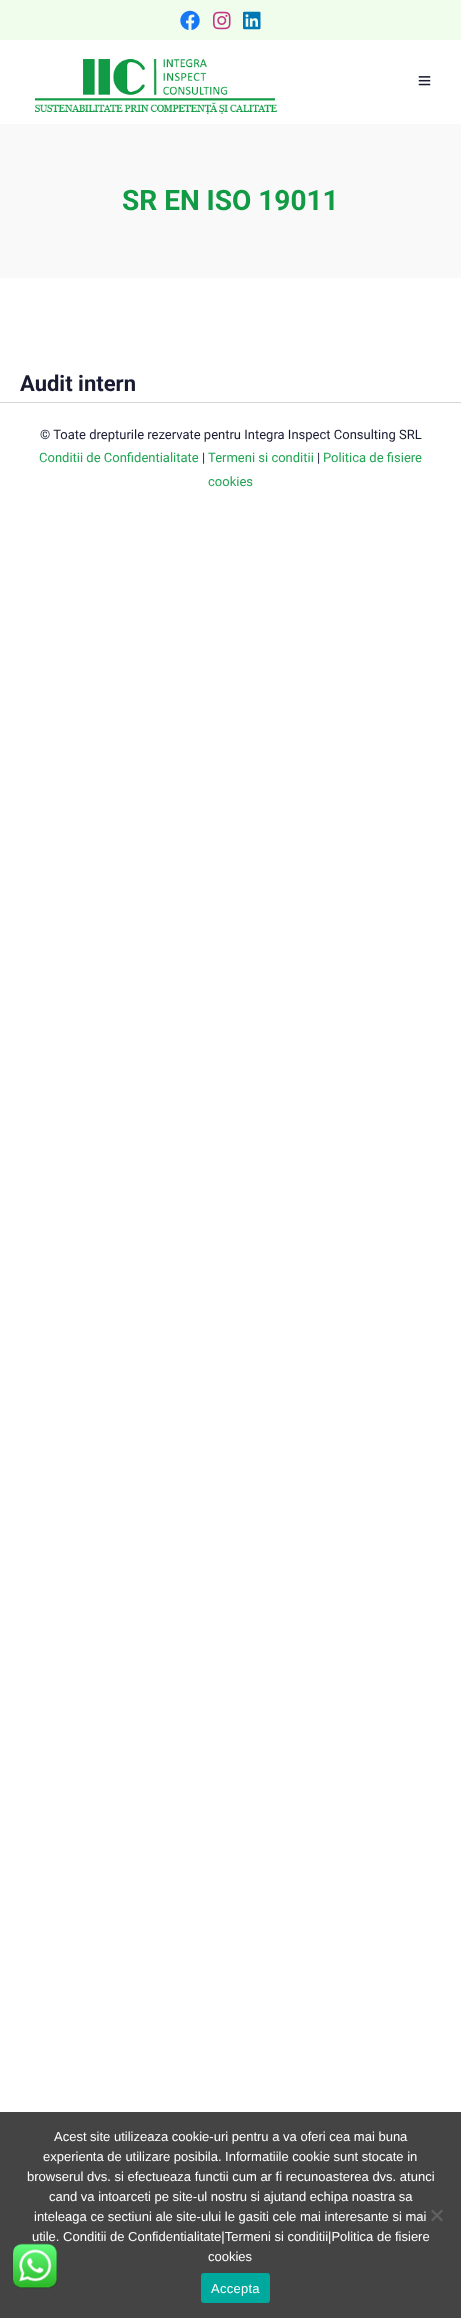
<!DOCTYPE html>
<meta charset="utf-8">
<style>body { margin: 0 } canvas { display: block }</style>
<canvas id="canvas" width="461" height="2318"></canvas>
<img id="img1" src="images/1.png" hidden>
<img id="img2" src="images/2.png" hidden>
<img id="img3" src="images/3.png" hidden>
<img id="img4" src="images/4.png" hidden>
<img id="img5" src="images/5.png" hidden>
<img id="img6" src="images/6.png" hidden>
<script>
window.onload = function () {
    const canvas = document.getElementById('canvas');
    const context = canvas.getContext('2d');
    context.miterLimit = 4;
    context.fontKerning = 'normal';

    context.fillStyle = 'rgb(255, 255, 255)';
    context.fillRect(0, 0, 461, 2318);
    context.fillStyle = 'rgb(240, 252, 236)';
    context.fillRect(0, 0, 461, 40);
    context.drawImage(document.getElementById('img1'), 180, 10, 20, 20);
    context.drawImage(document.getElementById('img2'), 213, 11, 18, 19);
    context.drawImage(document.getElementById('img3'), 243, 11, 18, 19);
    context.drawImage(document.getElementById('img4'), 35, 59, 243, 55);
    context.drawImage(document.getElementById('img5'), 418, 76, 13, 10);
    context.fillStyle = 'rgb(249, 249, 249)';
    context.fillRect(0, 124, 461, 154);
    context.fillStyle = 'rgb(216, 216, 216)';
    context.fillRect(0, 402, 461, 1);
    context.fillStyle = 'rgb(68, 68, 68)';
    context.fillRect(0, 2112, 461, 206);
    context.fillStyle = 'rgb(98, 98, 98)';
    context.beginPath();
    context.moveTo(441.5, 2209.5);
    context.lineTo(443, 2211);
    context.lineTo(432.5, 2221.5);
    context.lineTo(431, 2220);
    context.closePath();
    context.fill();
    context.beginPath();
    context.moveTo(431, 2211);
    context.lineTo(432.5, 2209.5);
    context.lineTo(443, 2220);
    context.lineTo(441.5, 2221.5);
    context.closePath();
    context.fill();
    context.fillStyle = 'rgb(0, 169, 157)';
    context.beginPath();
    context.roundRect(201, 2273, 69, 30, 3);
    context.fill();
    context.font = 'bold 28px Roboto';
    context.fillStyle = 'rgb(16, 155, 68)';
    context.fillText('SR EN ISO 19011', 122, 210);
    context.font = 'bold 22px Roboto';
    context.fillStyle = 'rgb(24, 27, 49)';
    context.fillText('Audit intern', 20, 391);
    context.font = '13px Roboto';
    context.fillText('© Toate drepturile rezervate pentru Integra Inspect Consulting SRL', 40, 439);
    context.fillStyle = 'rgb(35, 164, 85)';
    context.fillText('Conditii de Confidentialitate', 39, 462);
    context.fillStyle = 'rgb(24, 27, 49)';
    context.fillText('|', 202, 462);
    context.fillStyle = 'rgb(35, 164, 85)';
    context.fillText('Termeni si conditii', 208, 462);
    context.fillStyle = 'rgb(24, 27, 49)';
    context.fillText('|', 317, 462);
    context.fillStyle = 'rgb(35, 164, 85)';
    context.fillText('Politica de fisiere', 323, 462);
    context.fillText('cookies', 208, 486);
    context.font = '13px Liberation Sans';
    context.fillStyle = 'rgb(255, 255, 255)';
    context.fillText('Acest site utilizeaza cookie-uri pentru a va oferi cea mai buna', 54, 2141);
    context.fillText('experienta de utilizare posibila. Informatiile cookie sunt stocate in', 43, 2161);
    context.fillText('browserul dvs. si efectueaza functii cum ar fi recunoasterea dvs. atunci', 27, 2181);
    context.fillText('cand va intoarceti pe site-ul nostru si ajutand echipa noastra sa', 49, 2201);
    context.fillText('inteleaga ce sectiuni ale site-ului le gasiti cele mai interesante si mai', 34, 2221);
    context.fillText('utile. Conditii de Confidentialitate|Termeni si conditii|Politica de fisiere', 32, 2241);
    context.fillText('cookies', 208, 2261);
    context.letterSpacing = '0.25px';
    context.fillText('Accepta', 211, 2293);
    context.drawImage(document.getElementById('img6'), 12, 2243, 46, 46);
};
</script>
